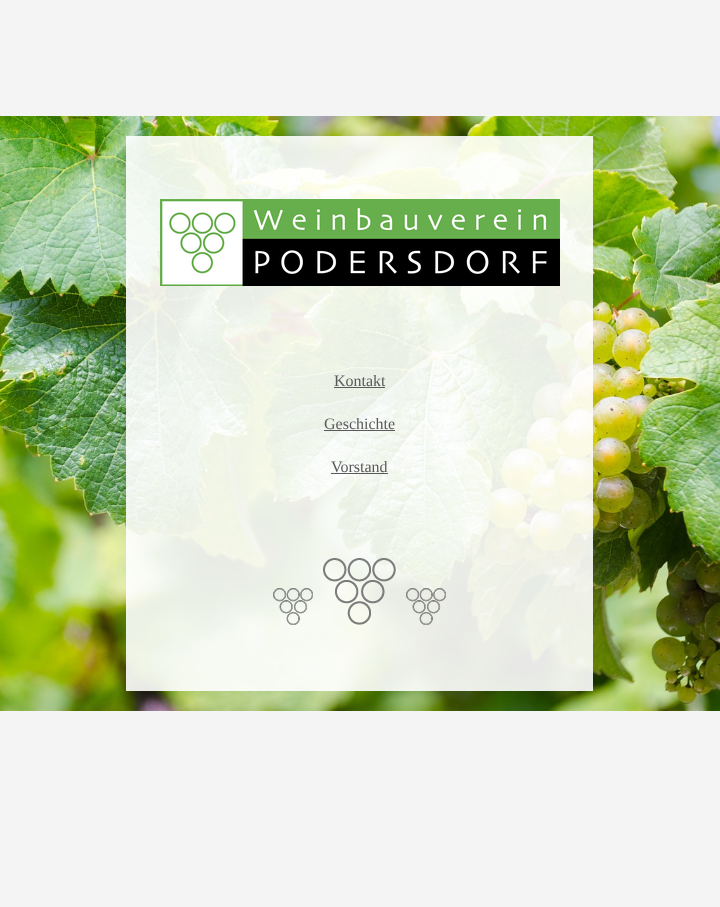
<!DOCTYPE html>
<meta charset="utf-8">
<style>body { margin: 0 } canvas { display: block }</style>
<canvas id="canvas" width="720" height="907"></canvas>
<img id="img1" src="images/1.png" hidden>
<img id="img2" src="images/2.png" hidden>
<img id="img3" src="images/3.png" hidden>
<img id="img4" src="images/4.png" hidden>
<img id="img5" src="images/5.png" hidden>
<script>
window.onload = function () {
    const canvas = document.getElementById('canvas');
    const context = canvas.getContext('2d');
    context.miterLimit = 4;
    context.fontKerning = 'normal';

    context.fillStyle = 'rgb(244, 244, 244)';
    context.fillRect(0, 0, 720, 907);
    context.drawImage(document.getElementById('img1'), 0, 116, 720, 595);
    context.fillStyle = 'rgba(255, 255, 255, 0.9)';
    context.fillRect(126, 136, 467, 555);
    context.drawImage(document.getElementById('img2'), 160, 199, 400, 87);
    context.fillStyle = 'rgb(90, 90, 90)';
    context.fillRect(334, 387, 51, 1);
    context.fillRect(324, 430, 71, 1);
    context.fillRect(331, 473, 57, 1);
    context.drawImage(document.getElementById('img3'), 273, 588, 40, 37);
    context.drawImage(document.getElementById('img4'), 323, 558, 73, 67);
    context.drawImage(document.getElementById('img5'), 406, 588, 40, 37);
    context.font = '16px Liberation Serif';
    context.fillText('Kontakt', 334, 386);
    context.fillText('Geschichte', 324, 429);
    context.fillText('Vorstand', 331, 472);
};
</script>
